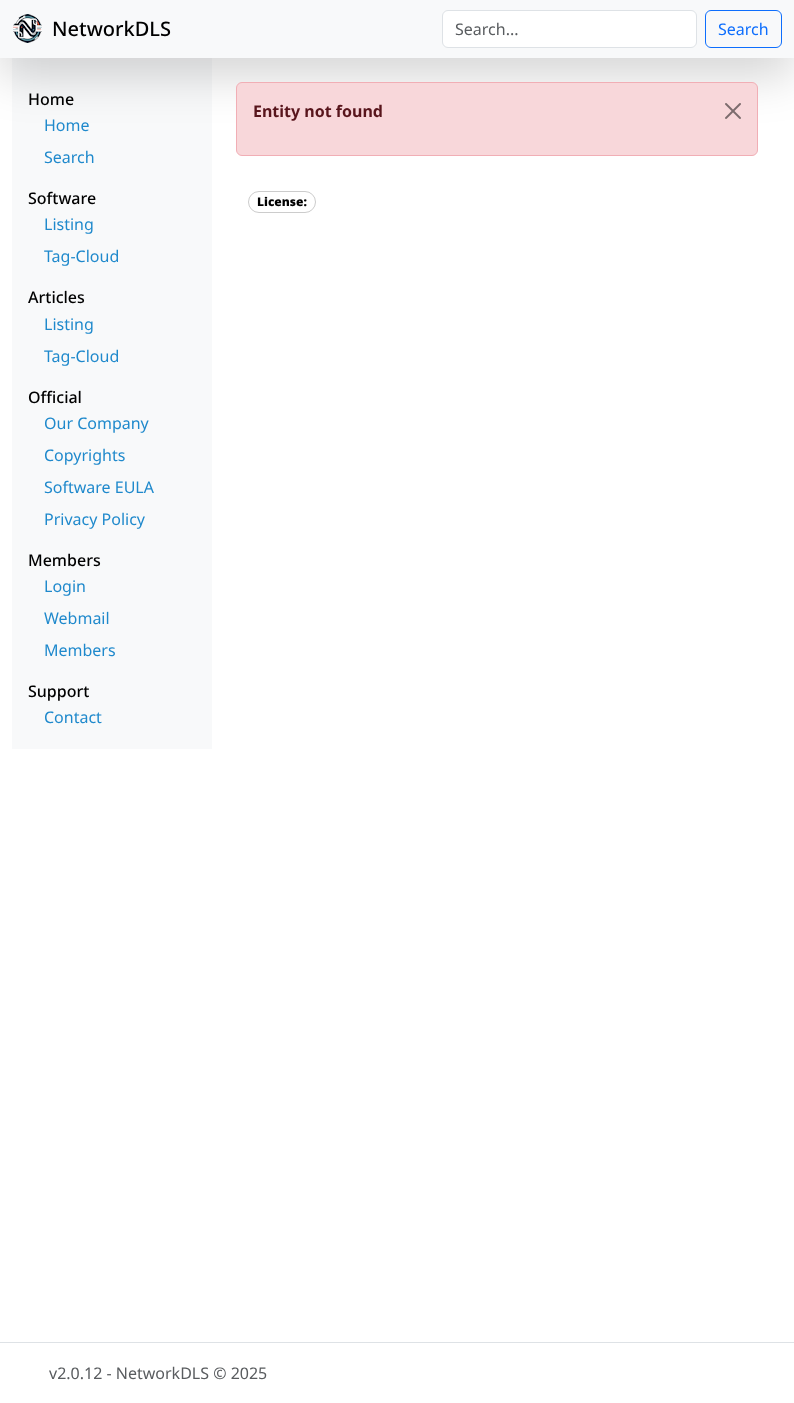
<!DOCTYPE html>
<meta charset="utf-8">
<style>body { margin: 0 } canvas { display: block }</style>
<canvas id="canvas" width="794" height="1403"></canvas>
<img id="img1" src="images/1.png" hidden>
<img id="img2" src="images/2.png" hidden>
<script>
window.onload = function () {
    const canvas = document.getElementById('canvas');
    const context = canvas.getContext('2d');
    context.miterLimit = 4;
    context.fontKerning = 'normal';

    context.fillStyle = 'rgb(255, 255, 255)';
    context.fillRect(0, 0, 794, 1403);
    context.fillStyle = 'rgb(248, 249, 250)';
    context.fillRect(12, 58, 200, 691);
    context.fillStyle = 'rgba(0, 0, 0, 0.18)';
    context.filter = 'blur(24px)';
    context.beginPath();
    context.rect(0, 16, 794, 58);
    context.fill();
    context.filter = 'none';
    context.fillStyle = 'rgb(248, 249, 250)';
    context.fillRect(0, 0, 794, 58);
    context.drawImage(document.getElementById('img1'), 13, 14, 29, 29);
    context.fillStyle = 'rgb(255, 255, 255)';
    context.beginPath();
    context.roundRect(442.5, 10.5, 254, 37, 5.5);
    context.fill();
    context.strokeStyle = 'rgb(222, 226, 230)';
    context.stroke();
    context.beginPath();
    context.roundRect(705.5, 10.5, 76, 37, 5.5);
    context.strokeStyle = 'rgb(13, 110, 253)';
    context.stroke();
    context.fillStyle = 'rgb(248, 215, 218)';
    context.beginPath();
    context.roundRect(236.5, 82.5, 521, 73, 5.5);
    context.fill();
    context.strokeStyle = 'rgb(241, 174, 181)';
    context.stroke();
    context.drawImage(document.getElementById('img2'), 725, 103, 16, 16);
    context.beginPath();
    context.roundRect(248.5, 191.5, 67, 21, 10.5);
    context.strokeStyle = 'rgb(204, 204, 204)';
    context.stroke();
    context.fillStyle = 'rgb(222, 226, 230)';
    context.fillRect(0, 1342, 794, 1);
    context.font = '500 20px Noto Sans';
    context.fillStyle = 'rgb(0, 0, 0)';
    context.fillText('NetworkDLS', 52, 36);
    context.font = '16px Noto Sans';
    context.fillStyle = 'rgb(89, 92, 95)';
    context.fillText('Search...', 455, 35);
    context.fillStyle = 'rgb(13, 110, 253)';
    context.fillText('Search', 718, 35);
    context.font = '500 16px Noto Sans';
    context.fillStyle = 'rgb(0, 0, 0)';
    context.fillText('Home', 28, 105);
    context.font = '16px Noto Sans';
    context.fillStyle = 'rgb(31, 137, 204)';
    context.fillText('Home', 44, 131);
    context.fillText('Search', 44, 163);
    context.font = '500 16px Noto Sans';
    context.fillStyle = 'rgb(0, 0, 0)';
    context.fillText('Software', 28, 204);
    context.font = '16px Noto Sans';
    context.fillStyle = 'rgb(31, 137, 204)';
    context.fillText('Listing', 44, 230);
    context.fillText('Tag-Cloud', 44, 262);
    context.font = '500 16px Noto Sans';
    context.fillStyle = 'rgb(0, 0, 0)';
    context.fillText('Articles', 28, 303);
    context.font = '16px Noto Sans';
    context.fillStyle = 'rgb(31, 137, 204)';
    context.fillText('Listing', 44, 330);
    context.fillText('Tag-Cloud', 44, 362);
    context.font = '500 16px Noto Sans';
    context.fillStyle = 'rgb(0, 0, 0)';
    context.fillText('Official', 28, 403);
    context.font = '16px Noto Sans';
    context.fillStyle = 'rgb(31, 137, 204)';
    context.fillText('Our Company', 44, 429);
    context.fillText('Copyrights', 44, 461);
    context.fillText('Software EULA', 44, 493);
    context.fillText('Privacy Policy', 44, 525);
    context.font = '500 16px Noto Sans';
    context.fillStyle = 'rgb(0, 0, 0)';
    context.fillText('Members', 28, 566);
    context.font = '16px Noto Sans';
    context.fillStyle = 'rgb(31, 137, 204)';
    context.fillText('Login', 44, 592);
    context.fillText('Webmail', 44, 624);
    context.fillText('Members', 44, 656);
    context.font = '500 16px Noto Sans';
    context.fillStyle = 'rgb(0, 0, 0)';
    context.fillText('Support', 28, 697);
    context.font = '16px Noto Sans';
    context.fillStyle = 'rgb(31, 137, 204)';
    context.fillText('Contact', 44, 723);
    context.font = 'bold 16px Noto Sans';
    context.fillStyle = 'rgb(88, 21, 28)';
    context.fillText('Entity not found', 253, 117);
    context.font = '900 12px Noto Sans';
    context.fillStyle = 'rgb(0, 0, 0)';
    context.fillText('License:', 257, 206);
    context.font = '16px Noto Sans';
    context.fillStyle = 'rgb(89, 92, 95)';
    context.fillText('v2.0.12 - NetworkDLS © 2025', 49, 1379);
};
</script>
